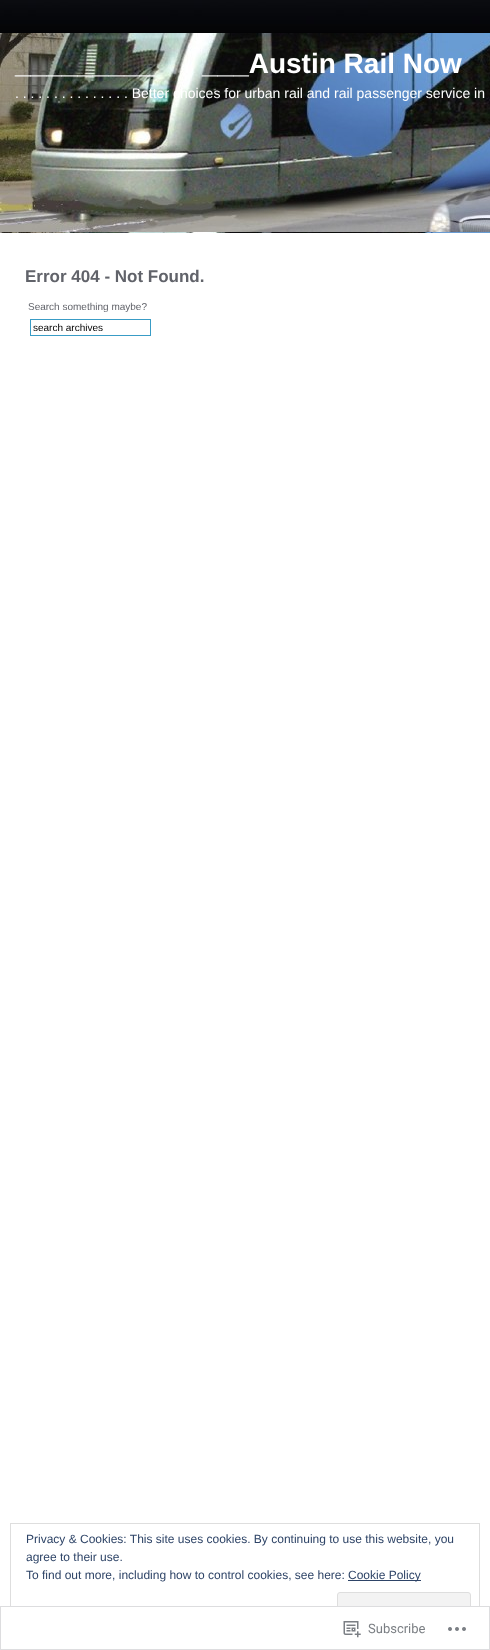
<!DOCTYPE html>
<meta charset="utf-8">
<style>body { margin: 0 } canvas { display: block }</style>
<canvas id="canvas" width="490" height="1650"></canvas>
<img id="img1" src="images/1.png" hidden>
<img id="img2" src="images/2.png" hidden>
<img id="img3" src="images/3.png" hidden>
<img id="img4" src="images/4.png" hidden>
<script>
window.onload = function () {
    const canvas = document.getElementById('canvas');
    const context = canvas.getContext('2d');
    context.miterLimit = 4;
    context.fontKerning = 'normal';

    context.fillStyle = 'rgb(255, 255, 255)';
    context.fillRect(0, 0, 490, 1650);
    context.drawImage(document.getElementById('img1'), 0, 0, 490, 33);
    context.drawImage(document.getElementById('img2'), 0, 33, 490, 200);
    context.strokeStyle = 'rgb(57, 156, 198)';
    context.strokeRect(30.5, 319.5, 120, 16);
    context.strokeStyle = 'rgb(222, 222, 222)';
    context.strokeRect(10.5, 1523.5, 469, 116);
    context.fillStyle = 'rgb(46, 68, 103)';
    context.fillRect(348, 1580, 73, 1);
    context.fillStyle = 'rgb(243, 243, 243)';
    context.beginPath();
    context.roundRect(337.5, 1592.5, 133, 38, 2.5);
    context.fill();
    context.stroke();
    context.fillStyle = 'rgba(255, 255, 255, 0.98)';
    context.fillRect(10, 1606, 470, 34);
    context.strokeStyle = 'rgba(220, 220, 222, 0.98)';
    context.strokeRect(0.5, 1606.5, 489, 43);
    context.drawImage(document.getElementById('img3'), 343, 1621, 18, 17);
    context.drawImage(document.getElementById('img4'), 448, 1627, 18, 4);
    context.font = 'bold 28px Liberation Sans';
    context.fillStyle = 'rgb(255, 255, 255)';
    context.fillText('_________', 15, 73);
    context.fillText('___Austin Rail Now', 202, 73);
    context.font = '14px Liberation Sans';
    context.fillText('. . . . . . . . . . . . . . . Better choices for urban rail and rail passenger service in', 15, 98);
    context.font = 'bold 17px Liberation Sans';
    context.fillStyle = 'rgb(97, 99, 106)';
    context.fillText('Error 404 - Not Found.', 25, 282);
    context.font = '10px Liberation Sans';
    context.fillText('Search something maybe?', 28, 310);
    context.fillStyle = 'rgb(0, 0, 0)';
    context.fillText('search archives', 33, 331);
    context.font = '12px Liberation Sans';
    context.fillStyle = 'rgb(46, 68, 103)';
    context.fillText('Privacy & Cookies: This site uses cookies. By continuing to use this website, you', 26, 1543);
    context.fillText('agree to their use.', 26, 1561);
    context.fillText('To find out more, including how to control cookies, see here:', 26, 1579);
    context.fillText('Cookie Policy', 348, 1579);
    context.font = '13px Roboto';
    context.fillStyle = 'rgb(123, 127, 132)';
    context.fillText('Subscribe', 368, 1633);
};
</script>
